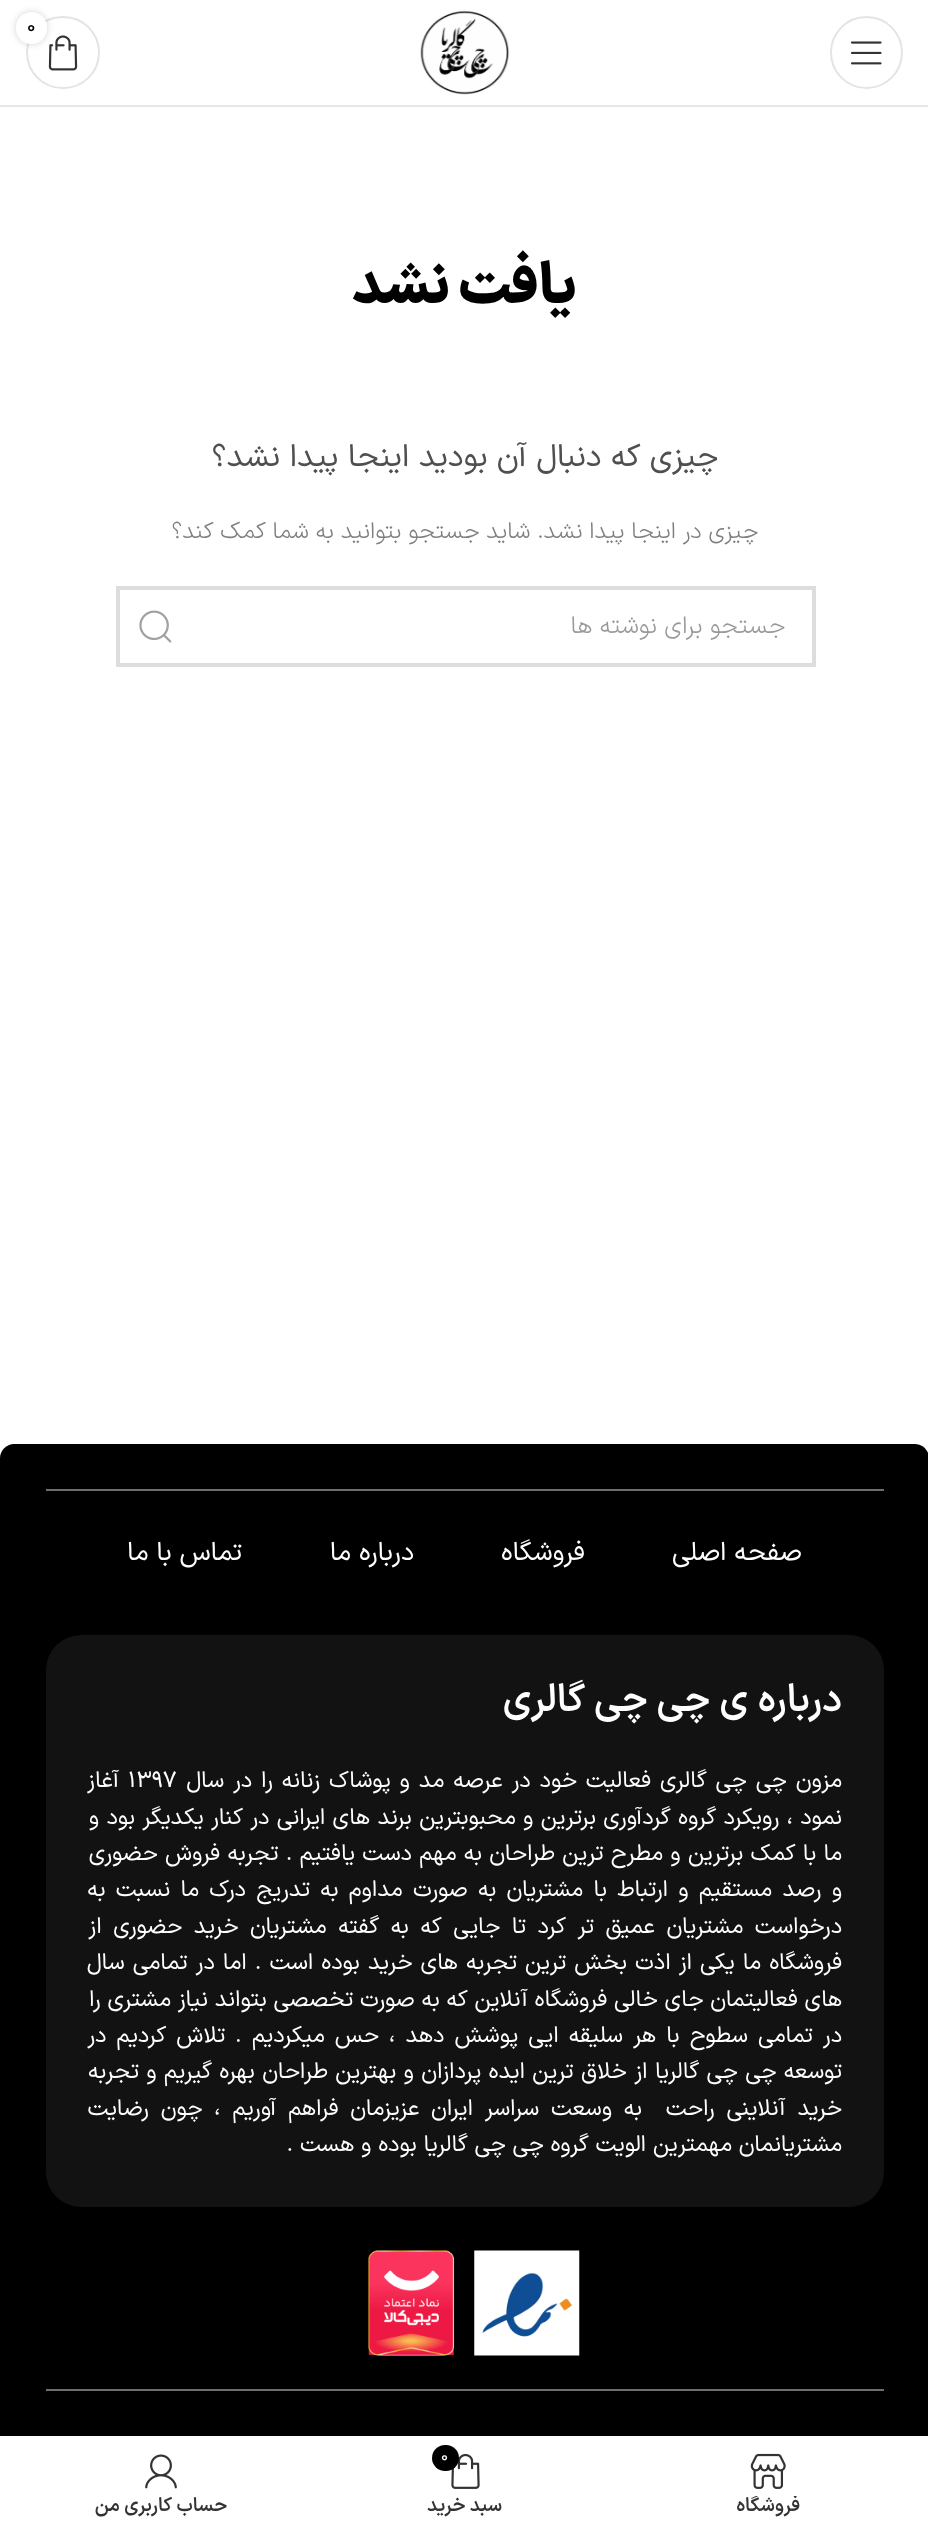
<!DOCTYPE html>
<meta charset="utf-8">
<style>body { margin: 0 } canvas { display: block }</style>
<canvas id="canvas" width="928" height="2531"></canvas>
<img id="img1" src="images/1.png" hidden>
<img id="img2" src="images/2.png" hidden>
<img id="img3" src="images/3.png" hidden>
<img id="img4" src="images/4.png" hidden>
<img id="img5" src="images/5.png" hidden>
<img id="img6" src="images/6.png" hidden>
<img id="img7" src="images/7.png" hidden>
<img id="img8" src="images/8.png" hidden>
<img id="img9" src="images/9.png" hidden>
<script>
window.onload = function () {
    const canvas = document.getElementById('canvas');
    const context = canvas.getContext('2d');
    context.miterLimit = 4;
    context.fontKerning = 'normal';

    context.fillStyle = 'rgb(255, 255, 255)';
    context.fillRect(0, 0, 928, 2531);
    context.fillStyle = 'rgb(231, 231, 231)';
    context.fillRect(0, 105, 928, 2);
    context.beginPath();
    context.arc(866.5, 52.5, 35.5, 0, 2 * Math.PI);
    context.strokeStyle = 'rgb(228, 228, 228)';
    context.lineWidth = 2;
    context.stroke();
    context.drawImage(document.getElementById('img1'), 851, 41, 31, 24);
    context.drawImage(document.getElementById('img2'), 420, 10, 90, 85);
    context.beginPath();
    context.roundRect(27, 17, 72, 71, 35.5);
    context.stroke();
    context.drawImage(document.getElementById('img3'), 48, 35, 30, 36);
    context.fillStyle = 'rgba(0, 0, 0, 0.17)';
    context.filter = 'blur(3.5px)';
    context.beginPath();
    context.roundRect(16, 12, 31, 32, 15.5);
    context.fill();
    context.filter = 'none';
    context.fillStyle = 'rgb(255, 255, 255)';
    context.beginPath();
    context.roundRect(16, 12, 31, 32, 15.5);
    context.fill();
    context.strokeStyle = 'rgb(221, 221, 221)';
    context.lineWidth = 4;
    context.strokeRect(118, 588, 696, 77);
    context.drawImage(document.getElementById('img4'), 139, 610, 33, 33);
    context.fillStyle = 'rgb(0, 0, 0)';
    context.beginPath();
    context.moveTo(14, 1444);
    context.lineTo(915, 1444);
    context.bezierCurveTo(922.5, 1444, 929, 1450.5, 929, 1458);
    context.lineTo(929, 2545);
    context.lineTo(0, 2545);
    context.lineTo(0, 1458);
    context.bezierCurveTo(0, 1450.5, 6.5, 1444, 14, 1444);
    context.closePath();
    context.fill();
    context.fillStyle = 'rgb(110, 110, 110)';
    context.fillRect(46, 1489, 838, 2);
    context.fillStyle = 'rgb(18, 18, 18)';
    context.beginPath();
    context.roundRect(46, 1635, 838, 572, 35);
    context.fill();
    context.drawImage(document.getElementById('img5'), 474, 2250, 106, 106);
    context.drawImage(document.getElementById('img6'), 368, 2250, 87, 106);
    context.fillStyle = 'rgb(110, 110, 110)';
    context.fillRect(46, 2389, 838, 2);
    context.fillStyle = 'rgb(255, 255, 255)';
    context.fillRect(0, 2436, 928, 95);
    context.drawImage(document.getElementById('img7'), 750, 2453, 36, 36);
    context.drawImage(document.getElementById('img8'), 451, 2453, 29, 36);
    context.fillStyle = 'rgb(0, 0, 0)';
    context.beginPath();
    context.roundRect(432, 2445, 27, 26, 13);
    context.fill();
    context.drawImage(document.getElementById('img9'), 145, 2454, 32, 35);
    context.font = '19.25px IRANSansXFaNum';
    context.fillText('0', 27, 32);
    context.direction = 'rtl';
    context.font = '900 56px IRANSansXFaNum';
    context.fillText('یافت نشد', 577, 303);
    context.font = '31.5px IRANSansXFaNum';
    context.fillStyle = 'rgb(79, 79, 79)';
    context.fillText('چیزی که دنبال آن بودید اینجا پیدا نشد؟', 718, 466);
    context.font = '300 23.1px IRANSansXFaNum';
    context.fillStyle = 'rgb(127, 127, 127)';
    context.fillText('چیزی در اینجا پیدا نشد. شاید جستجو بتوانید به شما کمک کند؟', 758, 538);
    context.font = '300 24.5px IRANSansXFaNum';
    context.fillStyle = 'rgb(153, 153, 153)';
    context.fillText('جستجو برای نوشته ها', 785, 633);
    context.font = '26.25px IRANSansXFaNum';
    context.fillStyle = 'rgb(255, 255, 255)';
    context.fillText('صفحه اصلی', 802, 1560);
    context.fillText('فروشگاه', 585, 1560);
    context.fillText('درباره ما', 414, 1560);
    context.fillText('تماس با ما', 242, 1560);
    context.font = '600 38.5px IRANSansXFaNum';
    context.fillText('درباره ی', 842, 1711);
    context.fillText('چی چی گالری', 710, 1711);
    context.wordSpacing = '2.1px';
    context.font = '22.75px IRANSansXFaNum';
    context.fillText('مزون چی چی گالری فعالیت خود در عرصه مد و پوشاک زنانه را در سال', 842, 1787);
    context.wordSpacing = '0px';
    context.direction = 'ltr';
    context.fillText('1397', 128, 1787);
    context.direction = 'rtl';
    context.fillText('آغاز', 119, 1787);
    context.wordSpacing = '0.5px';
    context.fillText('نمود ، رویکرد گروه گردآوری برترین و محبوبترین برند های ایرانی در کنار یکدیگر بود و', 842, 1824);
    context.fillText('ما با کمک برترین و مطرح ترین طراحان به مهم دست یافتیم . تجربه فروش حضوری', 842, 1860);
    context.wordSpacing = '3.5px';
    context.fillText('و رصد مستقیم و ارتباط با مشتریان به صورت مداوم به تدریج درک ما نسبت به', 842, 1896);
    context.wordSpacing = '4.75px';
    context.fillText('درخواست مشتریان عمیق تر کرد تا جایی که به گفته مشتریان خرید حضوری از', 842, 1933);
    context.wordSpacing = '1.25px';
    context.fillText('فروشگاه ما یکی از اذت بخش ترین تجربه های خرید بوده است . اما در تمامی سال', 842, 1969);
    context.wordSpacing = '0px';
    context.fillText('های فعالیتمان جای خالی فروشگاه آنلاین که به صورت تخصصی بتواند نیاز مشتری را', 842, 2006);
    context.wordSpacing = '3.25px';
    context.fillText('در تمامی سطوح با هر سلیقه ایی پوشش دهد ، حس میکردیم . تلاش کردیم در', 842, 2042);
    context.wordSpacing = '0.6px';
    context.fillText('توسعه چی چی گالریا از خلاق ترین ایده پردازان و بهترین طراحان بهره گیریم و تجربه', 842, 2078);
    context.wordSpacing = '5px';
    context.fillText('خرید آنلاینی راحت  به وسعت سراسر ایران عزیزمان فراهم آوریم ، چون رضایت', 842, 2115);
    context.wordSpacing = '0px';
    context.fillText('مشتریانمان مهمترین الویت گروه چی چی گالریا بوده و هست .', 842, 2151);
    context.save();
    context.beginPath();
    context.rect(634, 2496, 269, 22);
    context.clip();
    context.font = '600 19.25px IRANSansXFaNum';
    context.fillStyle = 'rgb(51, 51, 51)';
    context.fillText('فروشگاه', 800, 2511);
    context.restore();
    context.direction = 'ltr';
    context.font = '16px IRANSansXFaNum';
    context.fillText('0', 441, 2461);
    context.direction = 'rtl';
    context.font = '600 19.25px IRANSansXFaNum';
    context.fillStyle = 'rgb(51, 51, 51)';
    context.fillText('سبد خرید', 502, 2511);
    context.fillText('حساب کاربری من', 227, 2511);
};
</script>
